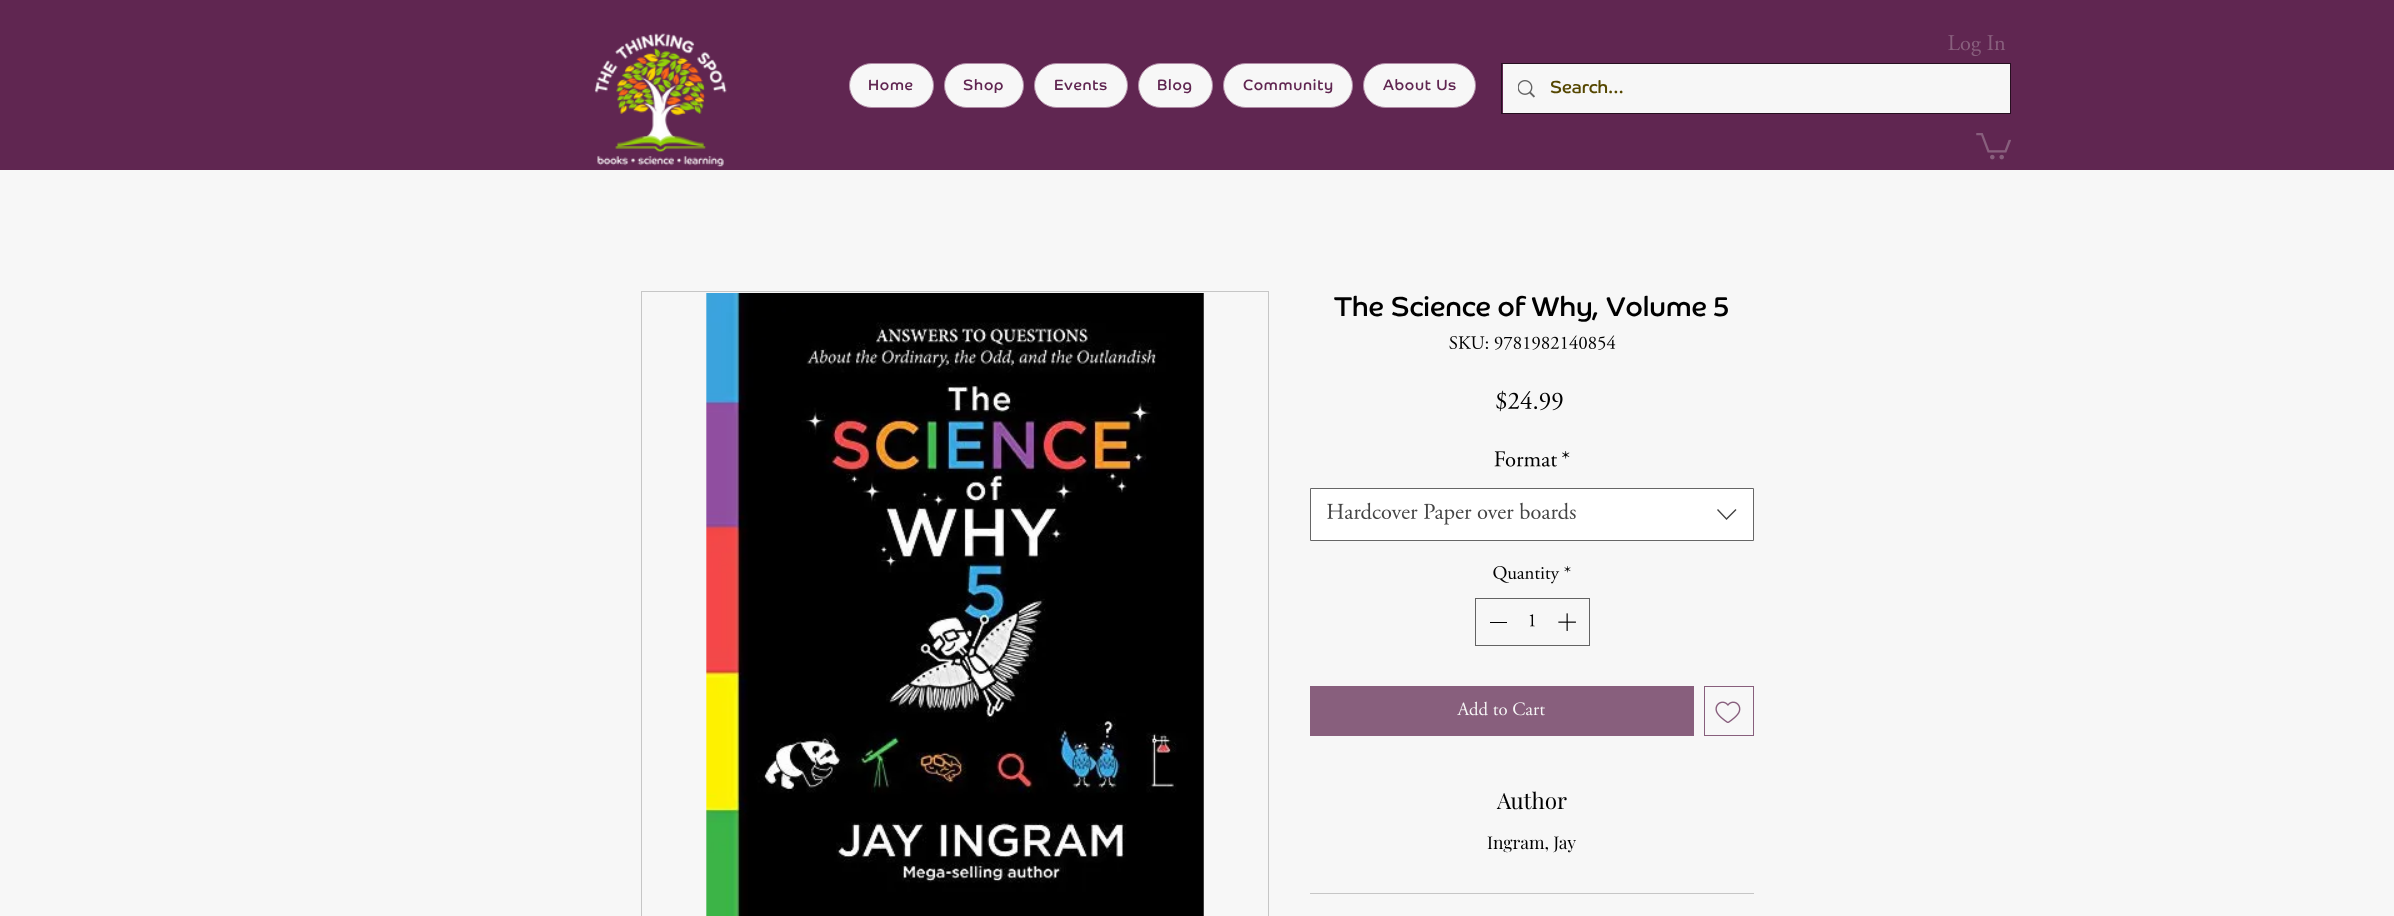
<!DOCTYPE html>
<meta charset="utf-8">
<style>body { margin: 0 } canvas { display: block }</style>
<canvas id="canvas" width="2394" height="916"></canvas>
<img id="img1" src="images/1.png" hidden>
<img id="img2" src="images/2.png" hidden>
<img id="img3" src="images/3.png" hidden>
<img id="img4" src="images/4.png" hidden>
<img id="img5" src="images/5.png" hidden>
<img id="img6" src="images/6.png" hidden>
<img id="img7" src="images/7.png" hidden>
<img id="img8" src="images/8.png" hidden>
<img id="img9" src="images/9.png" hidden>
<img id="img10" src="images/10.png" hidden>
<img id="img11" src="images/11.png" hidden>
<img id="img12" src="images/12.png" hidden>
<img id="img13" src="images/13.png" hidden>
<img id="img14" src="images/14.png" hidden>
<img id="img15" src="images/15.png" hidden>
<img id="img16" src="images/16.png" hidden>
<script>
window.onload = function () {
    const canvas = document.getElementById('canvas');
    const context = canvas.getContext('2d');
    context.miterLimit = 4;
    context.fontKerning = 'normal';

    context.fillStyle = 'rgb(247, 247, 247)';
    context.fillRect(0, 0, 2394, 916);
    context.fillStyle = 'rgb(96, 38, 81)';
    context.fillRect(0, 0, 2394, 170);
    context.drawImage(document.getElementById('img1'), 594, 33, 133, 134);
    context.drawImage(document.getElementById('img2'), 1948, 35, 58, 21);
    context.fillStyle = 'rgb(247, 247, 247)';
    context.beginPath();
    context.roundRect(849.5, 63.5, 84, 44, 22);
    context.fill();
    context.strokeStyle = 'rgb(176, 140, 166)';
    context.stroke();
    context.beginPath();
    context.roundRect(944.5, 63.5, 79, 44, 22);
    context.fill();
    context.stroke();
    context.beginPath();
    context.roundRect(1034.5, 63.5, 93, 44, 22);
    context.fill();
    context.stroke();
    context.beginPath();
    context.roundRect(1138.5, 63.5, 74, 44, 22);
    context.fill();
    context.stroke();
    context.beginPath();
    context.roundRect(1223.5, 63.5, 129, 44, 22);
    context.fill();
    context.stroke();
    context.beginPath();
    context.roundRect(1363.5, 63.5, 112, 44, 22);
    context.fill();
    context.stroke();
    context.strokeStyle = 'rgb(38, 15, 32)';
    context.strokeRect(1501.5, 63.5, 509, 50);
    context.fillRect(1503, 64, 507, 49);
    context.drawImage(document.getElementById('img3'), 1518, 80, 17, 18);
    context.drawImage(document.getElementById('img4'), 1976, 133, 35, 27);
    context.strokeStyle = 'rgb(198, 198, 198)';
    context.strokeRect(641.5, 291.5, 627, 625);
    context.drawImage(document.getElementById('img5'), 706, 293, 498, 623);
    context.drawImage(document.getElementById('img6'), 1449, 335, 167, 15);
    context.drawImage(document.getElementById('img7'), 1496, 390, 67, 22);
    context.drawImage(document.getElementById('img8'), 1494, 451, 63, 16);
    context.drawImage(document.getElementById('img9'), 1562, 451, 8, 8);
    context.fillStyle = 'rgb(255, 255, 255)';
    context.beginPath();
    context.rect(1310.5, 488.5, 443, 52);
    context.fill();
    context.strokeStyle = 'rgb(102, 102, 102)';
    context.stroke();
    context.drawImage(document.getElementById('img10'), 1327, 502, 249, 23);
    context.fillStyle = 'rgb(68, 68, 68)';
    context.beginPath();
    context.moveTo(1735.5, 509);
    context.lineTo(1736.5, 510);
    context.lineTo(1726.5, 520);
    context.lineTo(1717, 510);
    context.lineTo(1718, 509);
    context.lineTo(1726.5, 518);
    context.closePath();
    context.fill('evenodd');
    context.drawImage(document.getElementById('img11'), 1493, 566, 67, 18);
    context.drawImage(document.getElementById('img12'), 1564, 566, 7, 7);
    context.strokeStyle = 'rgb(99, 99, 99)';
    context.strokeRect(1475.5, 598.5, 114, 47);
    context.fillStyle = 'rgb(0, 0, 0)';
    context.fillRect(1490, 622, 17, 1);
    context.drawImage(document.getElementById('img13'), 1529, 614, 6, 13);
    context.drawImage(document.getElementById('img14'), 1558, 613, 18, 18);
    context.fillStyle = 'rgb(136, 95, 125)';
    context.fillRect(1310, 686, 384, 50);
    context.drawImage(document.getElementById('img15'), 1457, 701, 88, 15);
    context.strokeStyle = 'rgb(136, 95, 125)';
    context.strokeRect(1704.5, 686.5, 49, 49);
    context.drawImage(document.getElementById('img16'), 1715, 701, 26, 22);
    context.fillStyle = 'rgb(198, 198, 198)';
    context.fillRect(1310, 893, 444, 1);
    context.letterSpacing = '0.75px';
    context.font = '15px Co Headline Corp';
    context.fillStyle = 'rgb(96, 38, 81)';
    context.fillText('Home', 868, 90);
    context.fillText('Shop', 963, 90);
    context.fillText('Events', 1054, 90);
    context.fillText('Blog', 1157, 90);
    context.fillText('Community', 1243, 90);
    context.fillText('About Us', 1383, 90);
    context.letterSpacing = '0px';
    context.font = '17.5px Co Headline Corp';
    context.fillStyle = 'rgb(85, 71, 0)';
    context.fillText('Search...', 1550, 93);
    context.font = '27.5px Co Headline Corp';
    context.fillStyle = 'rgb(0, 0, 0)';
    context.fillText('The Science of Why, Volume 5', 1334, 316);
    context.font = '22.5px Playfair Display';
    context.fillText('Author', 1497, 809);
    context.font = '17.5px Playfair Display';
    context.fillText('Ingram, Jay', 1487, 849);
};
</script>
